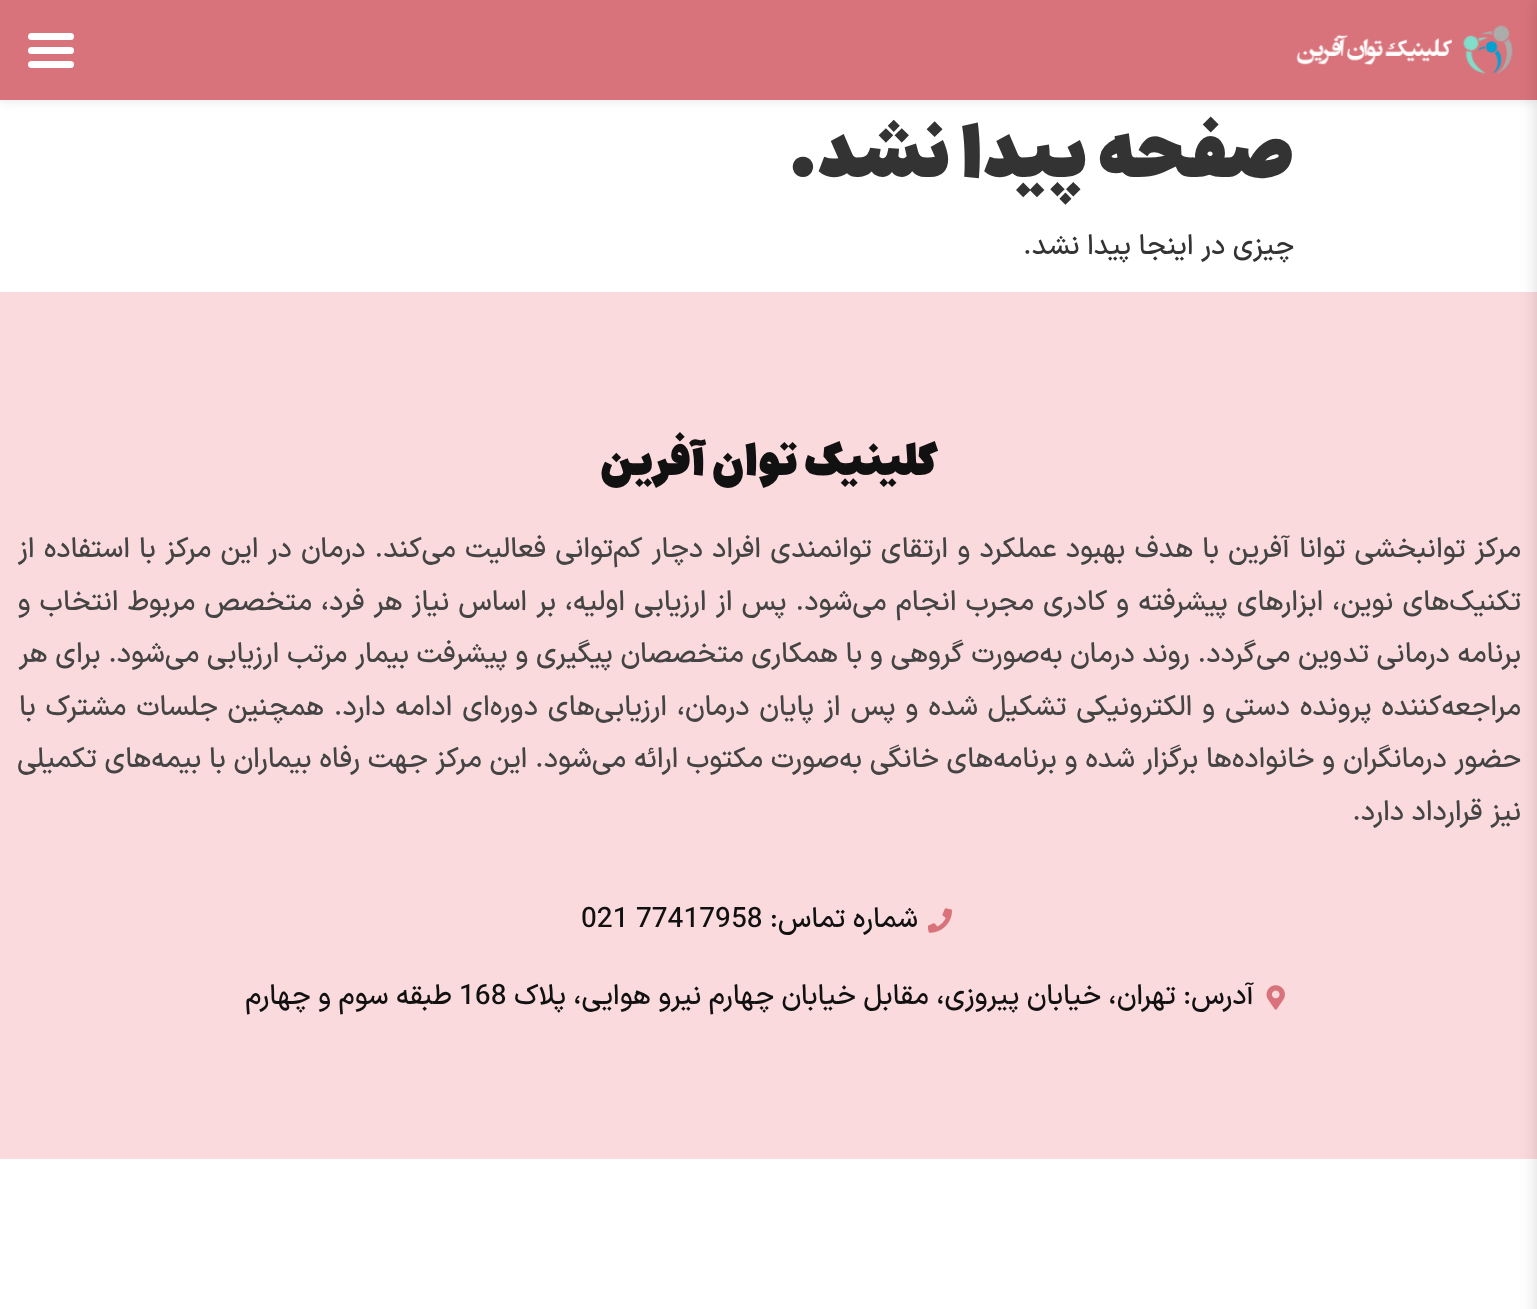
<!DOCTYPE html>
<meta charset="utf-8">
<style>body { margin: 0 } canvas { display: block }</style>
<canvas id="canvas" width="1537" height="1309"></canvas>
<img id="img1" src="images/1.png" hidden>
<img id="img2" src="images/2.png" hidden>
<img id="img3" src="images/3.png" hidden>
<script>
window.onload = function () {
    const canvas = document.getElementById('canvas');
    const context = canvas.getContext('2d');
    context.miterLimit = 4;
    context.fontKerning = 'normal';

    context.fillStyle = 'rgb(255, 255, 255)';
    context.fillRect(0, 0, 1537, 1309);
    context.fillStyle = 'rgba(0, 0, 0, 0.12)';
    context.filter = 'blur(6px)';
    context.beginPath();
    context.rect(0, 0, 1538, 100);
    context.fill();
    context.filter = 'none';
    context.fillStyle = 'rgb(217, 115, 123)';
    context.fillRect(0, 0, 1537, 100);
    context.drawImage(document.getElementById('img1'), 1296, 25, 217, 49);
    context.fillStyle = 'rgb(255, 255, 255)';
    context.beginPath();
    context.roundRect(28, 47, 46, 7, 3.5);
    context.fill();
    context.beginPath();
    context.roundRect(28, 33, 46, 7, 3.5);
    context.fill();
    context.beginPath();
    context.roundRect(28, 61, 46, 7, 3.5);
    context.fill();
    context.fillStyle = 'rgb(250, 218, 221)';
    context.fillRect(0, 292, 1537, 867);
    context.fillStyle = 'rgba(0, 0, 0, 0.16)';
    context.filter = 'blur(9px)';
    context.beginPath();
    context.rect(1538, 0, 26, 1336);
    context.fill();
    context.filter = 'none';
    context.drawImage(document.getElementById('img2'), 928, 908, 24, 25);
    context.drawImage(document.getElementById('img3'), 1266, 985, 19, 25);
    context.direction = 'rtl';
    context.font = '900 70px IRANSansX';
    context.fillStyle = 'rgb(51, 51, 51)';
    context.fillText('صفحه پیدا نشد.', 1294, 177);
    context.font = '500 28px IRANSansX';
    context.fillText('چیزی در اینجا پیدا نشد.', 1294, 254);
    context.font = '900 42px IRANSansX';
    context.fillStyle = 'rgb(17, 17, 17)';
    context.fillText('کلینیک توان آفرین', 938, 475);
    context.wordSpacing = '1.6px';
    context.font = '500 28px IRANSansX';
    context.fillStyle = 'rgb(68, 68, 68)';
    context.fillText('مرکز توانبخشی توانا آفرین با هدف بهبود عملکرد و ارتقای توانمندی افراد دچار کم‌توانی فعالیت می‌کند. درمان در این مرکز با استفاده از', 1521, 557);
    context.wordSpacing = '1.5px';
    context.fillText('تکنیک‌های نوین، ابزارهای پیشرفته و کادری مجرب انجام می‌شود. پس از ارزیابی اولیه، بر اساس نیاز هر فرد، متخصص مربوط انتخاب و', 1521, 610);
    context.wordSpacing = '0.1px';
    context.fillText('برنامه درمانی تدوین می‌گردد. روند درمان به‌صورت گروهی و با همکاری متخصصان پیگیری و پیشرفت بیمار مرتب ارزیابی می‌شود. برای هر', 1521, 662);
    context.wordSpacing = '2.25px';
    context.fillText('مراجعه‌کننده پرونده دستی و الکترونیکی تشکیل شده و پس از پایان درمان، ارزیابی‌های دوره‌ای ادامه دارد. همچنین جلسات مشترک با', 1521, 715);
    context.wordSpacing = '0.2px';
    context.fillText('حضور درمانگران و خانواده‌ها برگزار شده و برنامه‌های خانگی به‌صورت مکتوب ارائه می‌شود. این مرکز جهت رفاه بیماران با بیمه‌های تکمیلی', 1521, 767);
    context.wordSpacing = '0px';
    context.fillText('نیز قرارداد دارد.', 1521, 820);
    context.fillStyle = 'rgb(17, 17, 17)';
    context.fillText('شماره تماس:', 918, 927);
    context.direction = 'ltr';
    context.fillText('021 77417958', 581, 927);
    context.direction = 'rtl';
    context.fillText('آدرس: تهران، خیابان پیروزی، مقابل خیابان چهارم نیرو هوایی، پلاک', 1254, 1004);
    context.direction = 'ltr';
    context.fillText('168', 459, 1004);
    context.direction = 'rtl';
    context.fillText('طبقه سوم و چهارم', 452, 1004);
};
</script>
